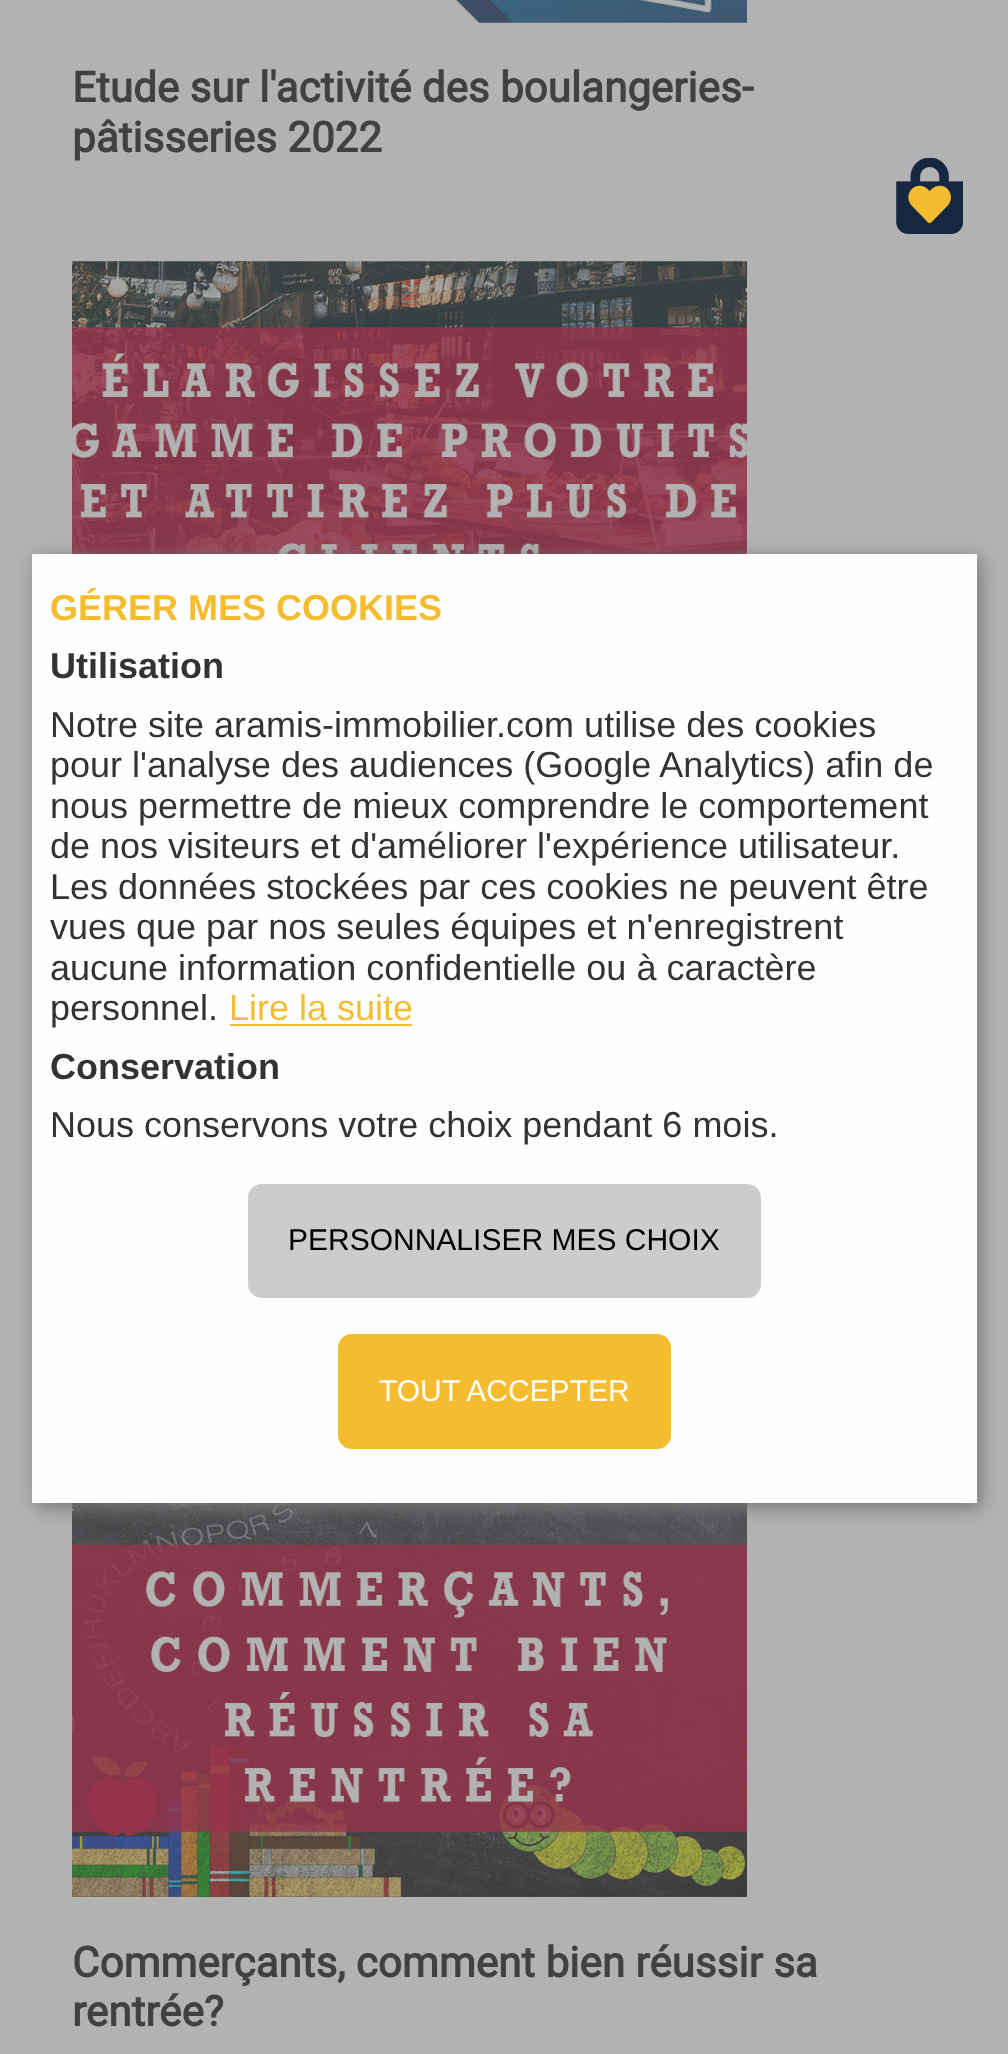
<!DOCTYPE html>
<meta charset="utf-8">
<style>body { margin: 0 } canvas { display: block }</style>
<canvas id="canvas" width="1008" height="2054"></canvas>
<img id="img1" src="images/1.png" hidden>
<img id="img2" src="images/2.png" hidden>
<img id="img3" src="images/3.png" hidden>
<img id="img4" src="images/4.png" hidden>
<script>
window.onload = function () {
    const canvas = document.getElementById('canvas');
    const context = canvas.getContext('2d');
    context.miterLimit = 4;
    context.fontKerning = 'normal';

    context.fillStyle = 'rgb(178, 178, 178)';
    context.fillRect(0, 0, 1008, 2054);
    context.drawImage(document.getElementById('img1'), 450, 0, 297, 23);
    context.drawImage(document.getElementById('img2'), 72, 261, 675, 293);
    context.drawImage(document.getElementById('img3'), 72, 1503, 675, 394);
    context.drawImage(document.getElementById('img4'), 896, 158, 67, 76);
    context.fillStyle = 'rgb(119, 119, 119)';
    context.filter = 'blur(9px)';
    context.beginPath();
    context.rect(36, 558, 945, 950);
    context.fill();
    context.filter = 'none';
    context.fillStyle = 'rgb(254, 254, 254)';
    context.fillRect(32, 554, 945, 949);
    context.fillStyle = 'rgb(246, 188, 47)';
    context.fillRect(230, 1024, 182, 2);
    context.fillStyle = 'rgb(204, 204, 204)';
    context.beginPath();
    context.roundRect(250.5, 1186.5, 508, 109, 11.5);
    context.fill();
    context.strokeStyle = 'rgb(204, 204, 204)';
    context.lineWidth = 5;
    context.stroke();
    context.fillStyle = 'rgb(246, 188, 47)';
    context.beginPath();
    context.roundRect(340.5, 1336.5, 328, 110, 11.5);
    context.fill();
    context.strokeStyle = 'rgb(246, 188, 47)';
    context.stroke();
    context.font = 'bold 42.1px Roboto';
    context.fillStyle = 'rgb(65, 65, 65)';
    context.fillText('Etude sur l\'activité des boulangeries-', 72, 102);
    context.fillText('pâtisseries 2022', 72, 152);
    context.fillText('Commerçants, comment bien réussir sa', 72, 1977);
    context.fillText('rentrée?', 72, 2026);
    context.font = 'bold 36px Liberation Sans';
    context.fillStyle = 'rgb(246, 188, 47)';
    context.fillText('GÉRER MES COOKIES', 50, 620);
    context.fillStyle = 'rgb(51, 51, 51)';
    context.fillText('Utilisation', 50, 678);
    context.font = '36px Liberation Sans';
    context.fillText('Notre site aramis-immobilier.com utilise des cookies', 50, 737);
    context.fillText('pour l\'analyse des audiences (Google Analytics) afin de', 50, 777);
    context.fillText('nous permettre de mieux comprendre le comportement', 50, 818);
    context.fillText('de nos visiteurs et d\'améliorer l\'expérience utilisateur.', 50, 858);
    context.fillText('Les données stockées par ces cookies ne peuvent être', 50, 899);
    context.fillText('vues que par nos seules équipes et n\'enregistrent', 50, 939);
    context.fillText('aucune information confidentielle ou à caractère', 50, 980);
    context.fillText('personnel.', 50, 1020);
    context.fillStyle = 'rgb(246, 188, 47)';
    context.fillText('Lire la suite', 229, 1020);
    context.font = 'bold 36px Liberation Sans';
    context.fillStyle = 'rgb(51, 51, 51)';
    context.fillText('Conservation', 50, 1079);
    context.font = '36px Liberation Sans';
    context.fillText('Nous conservons votre choix pendant 6 mois.', 50, 1137);
    context.font = '30px Liberation Sans';
    context.fillStyle = 'rgb(0, 0, 0)';
    context.fillText('PERSONNALISER MES CHOIX', 288, 1250);
    context.fillStyle = 'rgb(255, 255, 255)';
    context.fillText('TOUT ACCEPTER', 379, 1401);
};
</script>
